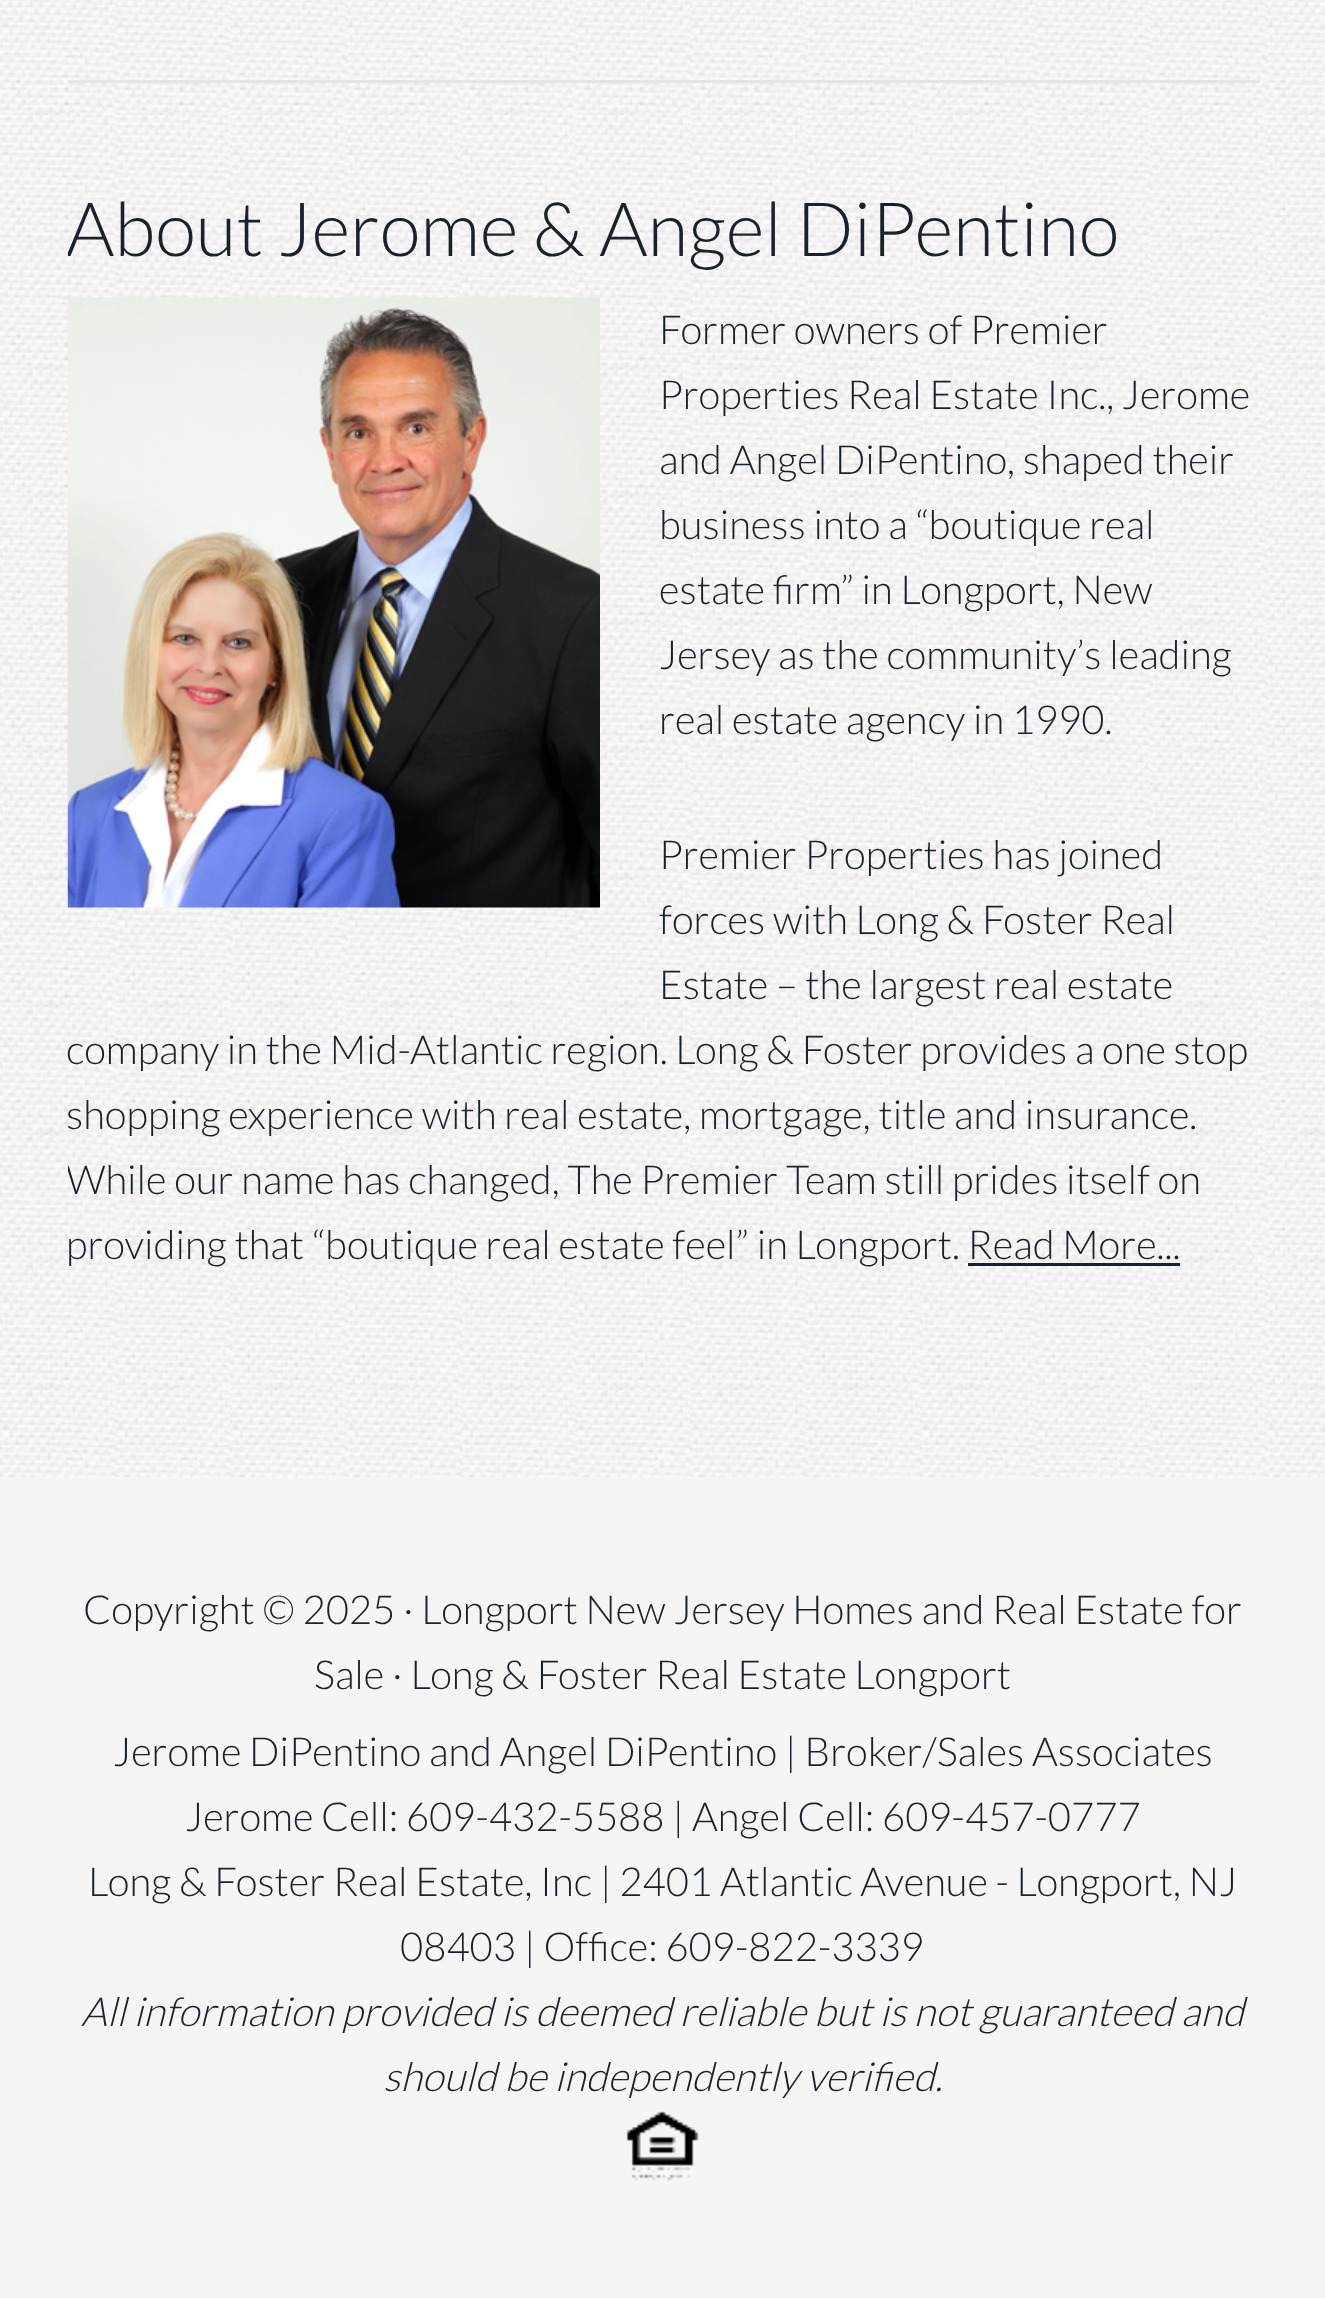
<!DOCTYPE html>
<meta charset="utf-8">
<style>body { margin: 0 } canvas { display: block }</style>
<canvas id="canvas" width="1325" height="2298"></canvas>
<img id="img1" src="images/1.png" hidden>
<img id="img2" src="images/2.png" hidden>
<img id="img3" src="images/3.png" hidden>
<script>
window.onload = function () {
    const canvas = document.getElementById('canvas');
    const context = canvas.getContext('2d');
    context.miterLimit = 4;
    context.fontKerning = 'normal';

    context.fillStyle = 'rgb(255, 255, 255)';
    context.fillRect(0, 0, 1325, 2298);
    context.drawImage(document.getElementById('img1'), 0, 0, 1325, 1478);
    context.fillStyle = 'rgb(229, 229, 229)';
    context.fillRect(68, 80, 1192, 3);
    context.drawImage(document.getElementById('img2'), 67, 297, 533, 611);
    context.fillStyle = 'rgb(26, 33, 43)';
    context.fillRect(968, 1263, 212, 3);
    context.fillStyle = 'rgb(245, 245, 245)';
    context.fillRect(0, 1478, 1325, 820);
    context.drawImage(document.getElementById('img3'), 626, 2111, 73, 70);
    context.save();
    context.beginPath();
    context.rect(68, 183, 1192, 1095);
    context.clip();
    context.font = '300 75px Lato';
    context.fillStyle = 'rgb(26, 33, 43)';
    context.fillText('About Jerome & Angel DiPentino', 66, 256);
    context.restore();
    context.font = '300 40px Lato';
    context.fillStyle = 'rgb(26, 33, 43)';
    context.fillText('Former owners of Premier', 659, 344);
    context.fillText('Properties Real Estate Inc., Jerome', 659, 409);
    context.fillText('and Angel DiPentino, shaped their', 659, 474);
    context.fillText('business into a “boutique real', 659, 539);
    context.fillText('estate firm” in Longport, New', 659, 604);
    context.fillText('Jersey as the community’s leading', 659, 669);
    context.fillText('real estate agency in 1990.', 659, 734);
    context.fillText('Premier Properties has joined', 659, 869);
    context.fillText('forces with Long & Foster Real', 659, 934);
    context.fillText('Estate – the largest real estate', 659, 999);
    context.fillText('company in the Mid-Atlantic region. Long & Foster provides a one stop', 66, 1064);
    context.fillText('shopping experience with real estate, mortgage, title and insurance.', 66, 1129);
    context.save();
    context.beginPath();
    context.rect(68, 183, 1192, 1095);
    context.clip();
    context.fillText('While our name has changed, The Premier Team still prides itself on', 66, 1194);
    context.restore();
    context.fillText('providing that “boutique real estate feel” in Longport. Read More...', 66, 1259);
    context.fillText('Copyright © 2025 · Longport New Jersey Homes and Real Estate for', 83, 1624);
    context.fillText('Sale · Long & Foster Real Estate Longport', 314, 1689);
    context.fillText('Jerome DiPentino and Angel DiPentino | Broker/Sales Associates', 113, 1766);
    context.fillText('Jerome Cell: 609-432-5588 | Angel Cell: 609-457-0777', 185, 1831);
    context.fillText('Long & Foster Real Estate, Inc | 2401 Atlantic Avenue - Longport, NJ', 88, 1896);
    context.fillText('08403 | Office: 609-822-3339', 400, 1961);
    context.font = 'italic 300 40px Lato';
    context.fillText('All information provided is deemed reliable but is not guaranteed and', 81, 2026);
    context.fillText('should be independently verified.', 383, 2091);
};
</script>
